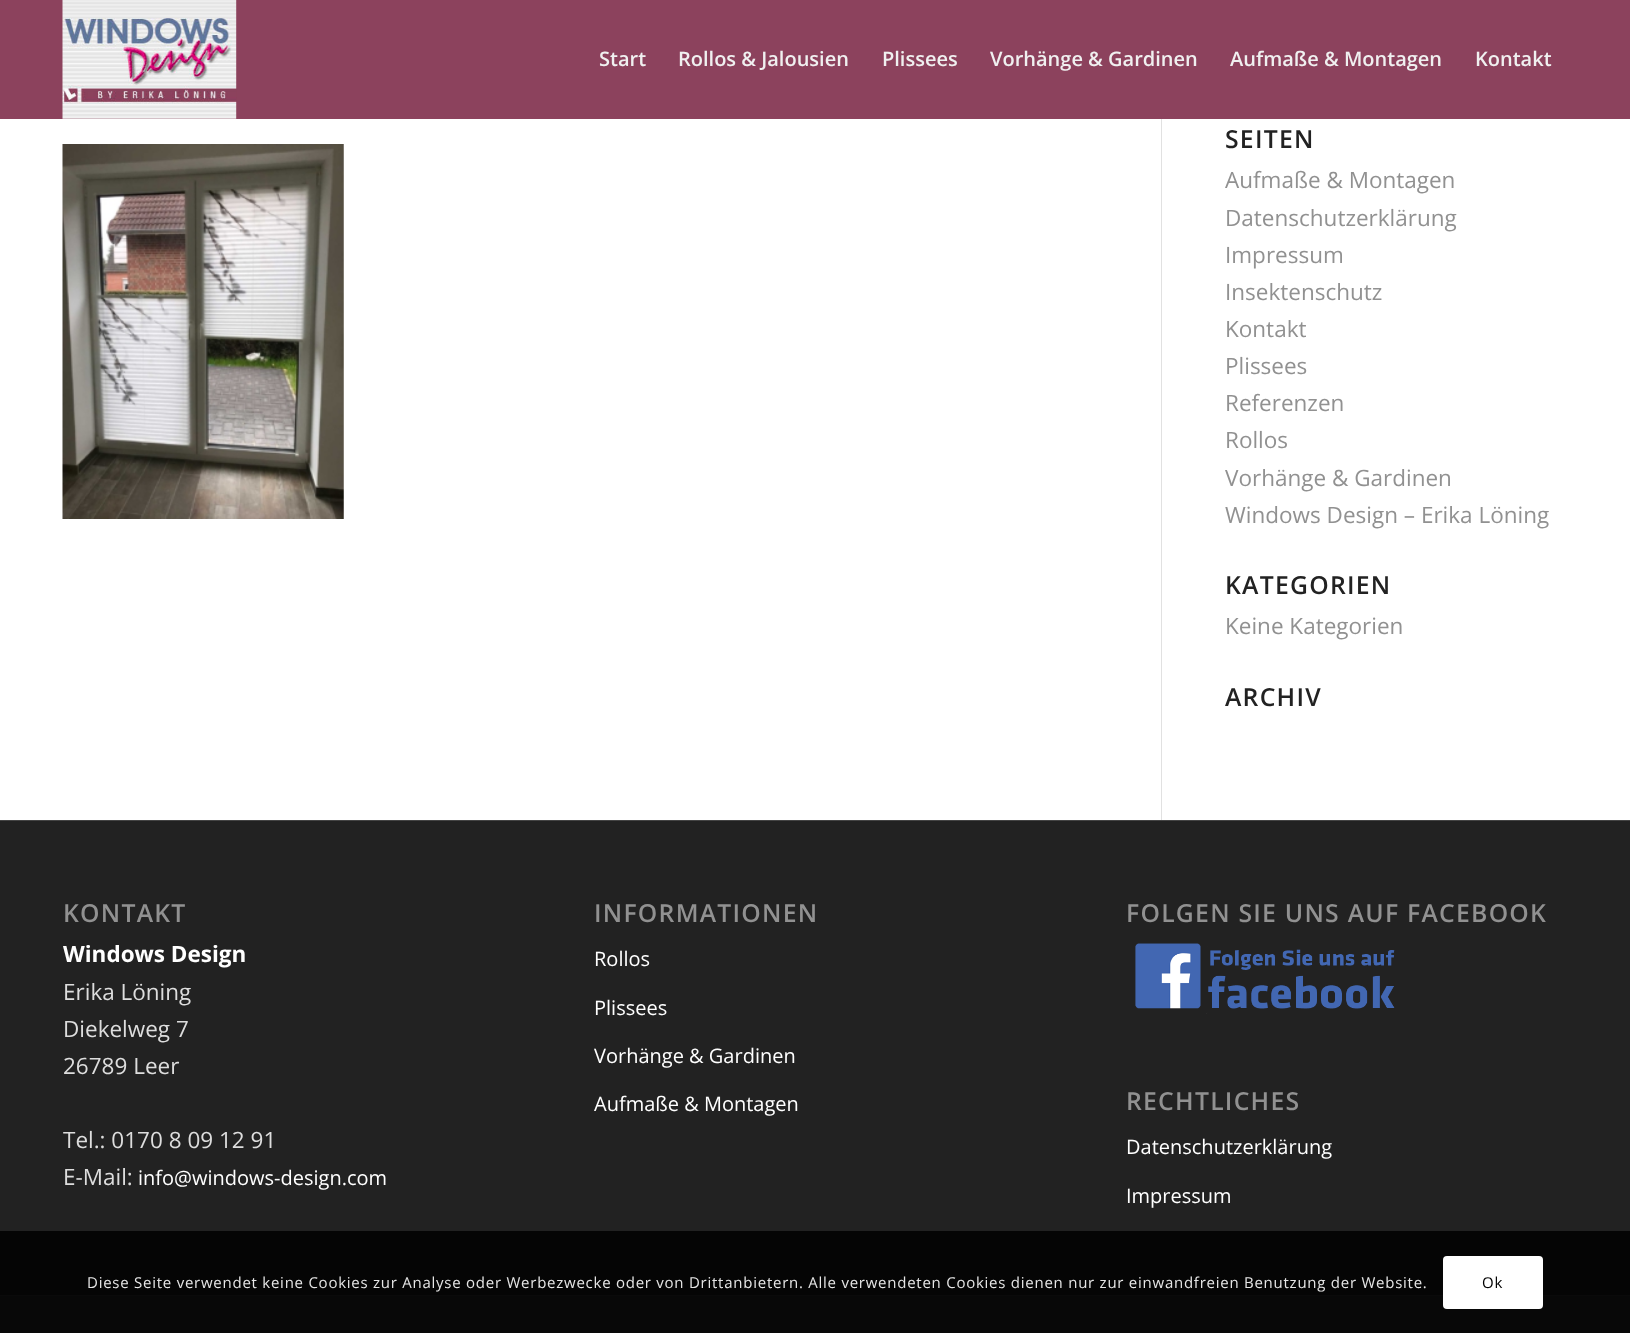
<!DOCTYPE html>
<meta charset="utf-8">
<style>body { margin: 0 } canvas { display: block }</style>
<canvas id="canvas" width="1630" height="1333"></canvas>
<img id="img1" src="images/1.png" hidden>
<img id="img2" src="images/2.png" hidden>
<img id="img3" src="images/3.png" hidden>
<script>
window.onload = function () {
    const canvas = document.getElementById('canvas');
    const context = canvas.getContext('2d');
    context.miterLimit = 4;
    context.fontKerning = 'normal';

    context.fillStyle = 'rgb(255, 255, 255)';
    context.fillRect(0, 0, 1630, 1333);
    context.fillStyle = 'rgb(140, 66, 93)';
    context.fillRect(0, 0, 1630, 119);
    context.drawImage(document.getElementById('img1'), 62, 0, 175, 119);
    context.drawImage(document.getElementById('img2'), 62, 144, 282, 375);
    context.fillStyle = 'rgb(225, 225, 225)';
    context.fillRect(1161, 119, 1, 701);
    context.fillStyle = 'rgb(34, 34, 34)';
    context.fillRect(0, 821, 1630, 410);
    context.fillStyle = 'rgb(5, 5, 5)';
    context.fillRect(0, 1231, 1630, 64);
    context.fillStyle = 'rgb(68, 68, 68)';
    context.fillRect(0, 820, 1630, 1);
    context.drawImage(document.getElementById('img3'), 1135, 943, 260, 71);
    context.fillStyle = 'rgb(8, 8, 8)';
    context.fillRect(0, 1296, 1630, 37);
    context.fillStyle = 'rgb(10, 10, 10)';
    context.fillRect(0, 1295, 1630, 1);
    context.fillStyle = 'rgb(255, 255, 255)';
    context.beginPath();
    context.roundRect(1443, 1256, 100, 53, 4);
    context.fill();
    context.font = '600 20px Open Sans';
    context.fillStyle = 'rgb(240, 240, 240)';
    context.fillText('Start', 599, 66);
    context.fillText('Rollos & Jalousien', 678, 66);
    context.fillText('Plissees', 882, 66);
    context.fillText('Vorhänge & Gardinen', 990, 66);
    context.fillText('Aufmaße & Montagen', 1230, 66);
    context.fillText('Kontakt', 1475, 66);
    context.letterSpacing = '1.25px';
    context.font = '600 24.75px Open Sans';
    context.fillStyle = 'rgb(34, 34, 34)';
    context.fillText('SEITEN', 1225, 148);
    context.letterSpacing = '0px';
    context.font = '22.5px Open Sans';
    context.fillStyle = 'rgb(145, 145, 145)';
    context.fillText('Aufmaße & Montagen', 1225, 188);
    context.fillText('Datenschutzerklärung', 1225, 226);
    context.fillText('Impressum', 1225, 263);
    context.fillText('Insektenschutz', 1225, 300);
    context.fillText('Kontakt', 1225, 337);
    context.fillText('Plissees', 1225, 374);
    context.fillText('Referenzen', 1225, 411);
    context.fillText('Rollos', 1225, 448);
    context.fillText('Vorhänge & Gardinen', 1225, 486);
    context.fillText('Windows Design – Erika Löning', 1225, 523);
    context.letterSpacing = '1.25px';
    context.font = '600 24.75px Open Sans';
    context.fillStyle = 'rgb(34, 34, 34)';
    context.fillText('KATEGORIEN', 1225, 594);
    context.letterSpacing = '0px';
    context.font = '22.5px Open Sans';
    context.fillStyle = 'rgb(145, 145, 145)';
    context.fillText('Keine Kategorien', 1225, 634);
    context.letterSpacing = '1.25px';
    context.font = '600 24.75px Open Sans';
    context.fillStyle = 'rgb(34, 34, 34)';
    context.fillText('ARCHIV', 1225, 706);
    context.fillStyle = 'rgb(145, 145, 145)';
    context.fillText('KONTAKT', 63, 922);
    context.letterSpacing = '0px';
    context.font = 'bold 22.5px Open Sans';
    context.fillStyle = 'rgb(255, 255, 255)';
    context.fillText('Windows Design', 63, 962);
    context.font = '22.5px Open Sans';
    context.fillStyle = 'rgb(221, 221, 221)';
    context.fillText('Erika Löning', 63, 1000);
    context.fillText('Diekelweg 7', 63, 1037);
    context.fillText('26789 Leer', 63, 1074);
    context.fillText('Tel.: 0170 8 09 12 91', 63, 1148);
    context.fillText('E-Mail:', 63, 1185);
    context.font = '20px Open Sans';
    context.fillStyle = 'rgb(255, 255, 255)';
    context.fillText('info@windows-design.com', 138, 1185);
    context.letterSpacing = '1.25px';
    context.font = '600 24.75px Open Sans';
    context.fillStyle = 'rgb(145, 145, 145)';
    context.fillText('INFORMATIONEN', 594, 922);
    context.letterSpacing = '0px';
    context.font = '20px Open Sans';
    context.fillStyle = 'rgb(255, 255, 255)';
    context.fillText('Rollos', 594, 966);
    context.fillText('Plissees', 594, 1015);
    context.fillText('Vorhänge & Gardinen', 594, 1063);
    context.fillText('Aufmaße & Montagen', 594, 1111);
    context.letterSpacing = '1.25px';
    context.font = '600 24.75px Open Sans';
    context.fillStyle = 'rgb(145, 145, 145)';
    context.fillText('FOLGEN SIE UNS AUF FACEBOOK', 1126, 922);
    context.fillText('RECHTLICHES', 1126, 1110);
    context.letterSpacing = '0px';
    context.font = '20px Open Sans';
    context.fillStyle = 'rgb(255, 255, 255)';
    context.fillText('Datenschutzerklärung', 1126, 1154);
    context.fillText('Impressum', 1126, 1203);
    context.letterSpacing = '0.75px';
    context.font = '15px Open Sans';
    context.fillStyle = 'rgb(230, 230, 230)';
    context.fillText('Diese Seite verwendet keine Cookies zur Analyse oder Werbezwecke oder von Drittanbietern. Alle verwendeten Cookies dienen nur zur einwandfreien Benutzung der Website.', 87, 1288);
    context.fillStyle = 'rgb(0, 0, 0)';
    context.fillText('Ok', 1482, 1288);
};
</script>
